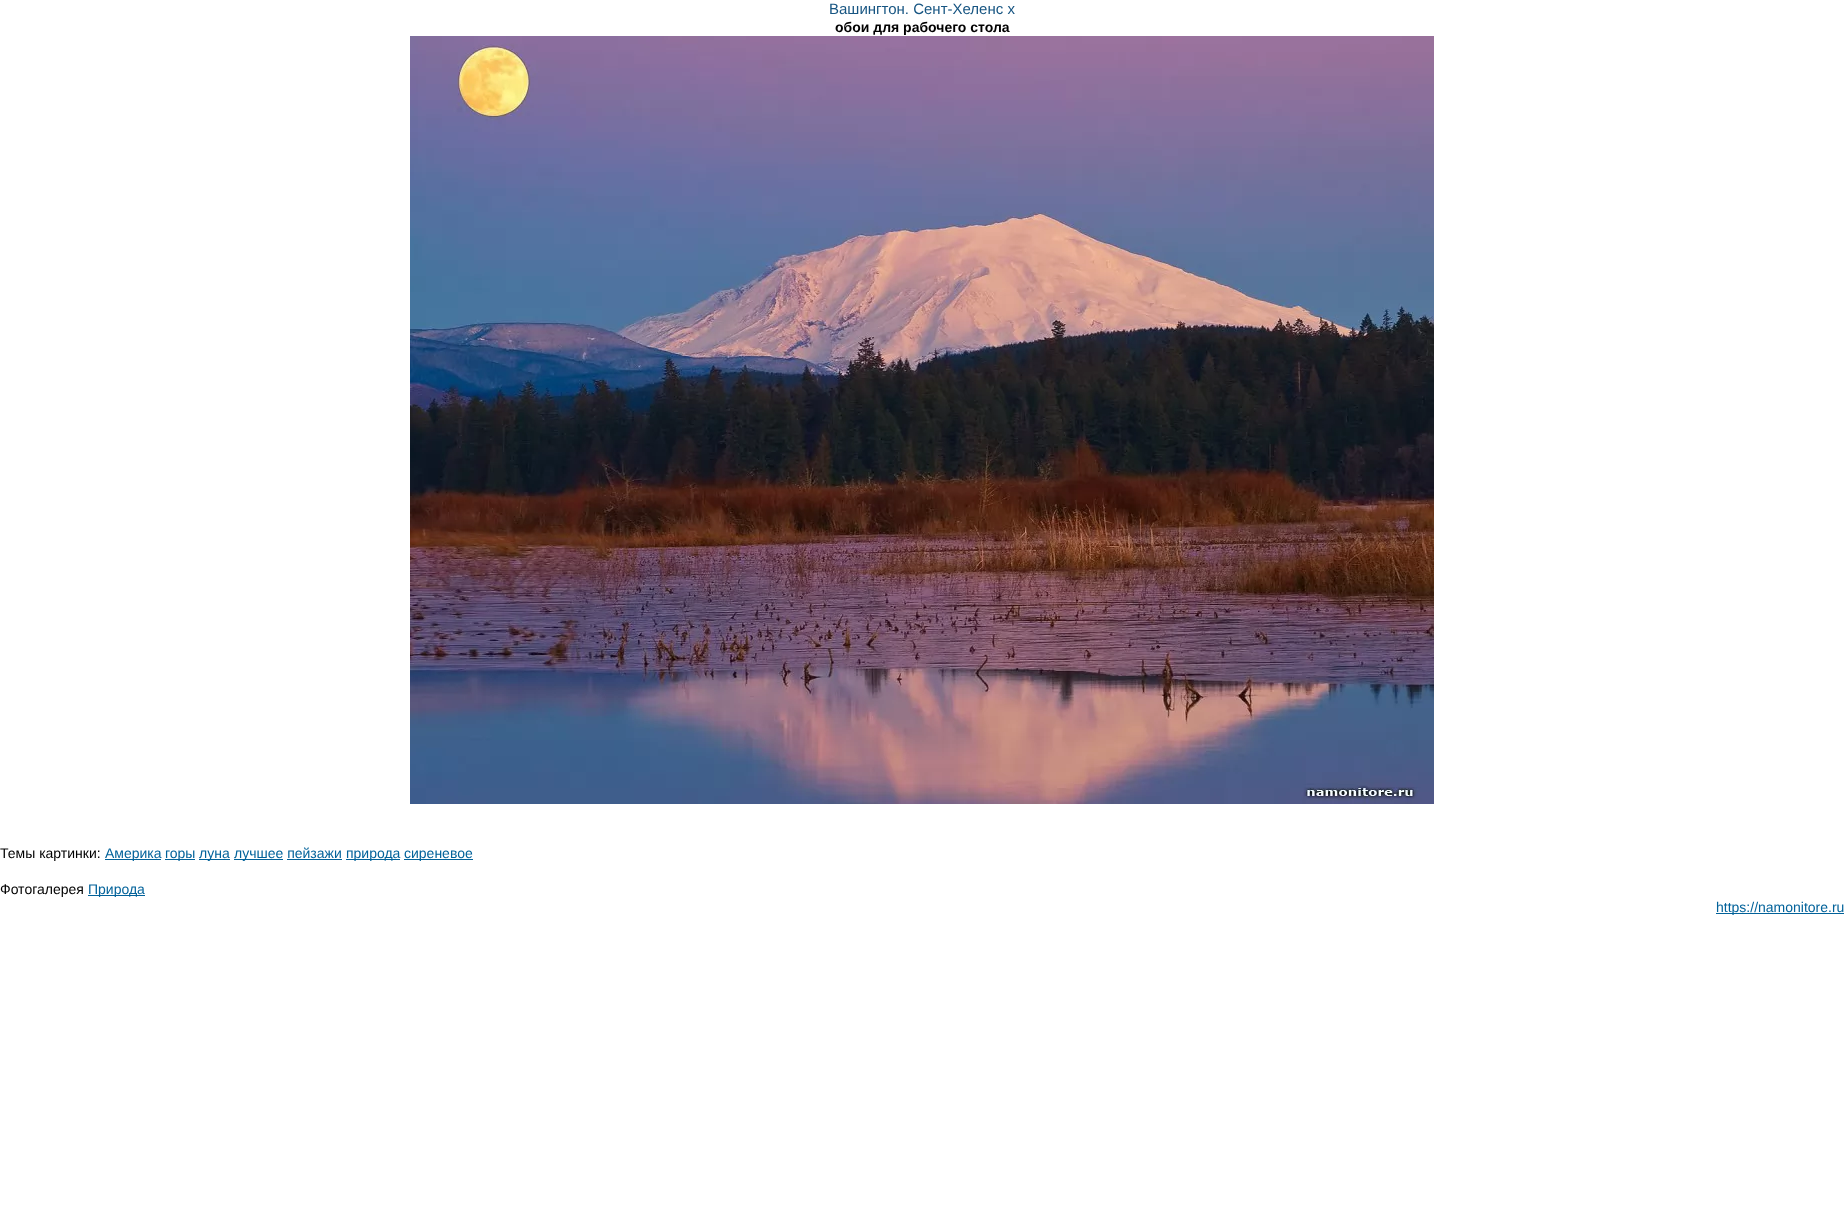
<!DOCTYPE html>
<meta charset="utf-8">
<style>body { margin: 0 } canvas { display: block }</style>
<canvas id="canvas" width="1844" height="1218"></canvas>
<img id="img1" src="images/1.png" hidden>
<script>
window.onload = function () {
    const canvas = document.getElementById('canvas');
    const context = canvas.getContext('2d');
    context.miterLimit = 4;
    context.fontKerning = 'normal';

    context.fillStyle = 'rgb(255, 255, 255)';
    context.fillRect(0, 0, 1844, 1218);
    context.drawImage(document.getElementById('img1'), 410, 36, 1024, 768);
    context.fillStyle = 'rgb(2, 98, 154)';
    context.fillRect(105, 859, 56, 1);
    context.fillRect(165, 859, 30, 1);
    context.fillRect(199, 859, 31, 1);
    context.fillRect(234, 859, 49, 1);
    context.fillRect(346, 859, 54, 1);
    context.fillRect(404, 859, 69, 1);
    context.fillRect(287, 859, 55, 1);
    context.fillRect(88, 895, 57, 1);
    context.fillRect(1716, 913, 128, 1);
    context.font = '15px Liberation Sans';
    context.fillStyle = 'rgb(23, 85, 130)';
    context.fillText('Вашингтон. Сент-Хеленс х', 829, 14);
    context.font = 'bold 14px Liberation Sans';
    context.fillStyle = 'rgb(0, 0, 0)';
    context.fillText('обои для рабочего стола', 835, 32);
    context.font = '14px Liberation Sans';
    context.fillText('Темы картинки:', 0, 858);
    context.fillStyle = 'rgb(2, 98, 154)';
    context.fillText('Америка', 105, 858);
    context.fillText('горы', 165, 858);
    context.fillText('луна', 199, 858);
    context.fillText('лучшее пейзажи', 234, 858);
    context.fillText('природа', 346, 858);
    context.fillText('сиреневое', 404, 858);
    context.fillStyle = 'rgb(0, 0, 0)';
    context.fillText('Фотогалерея', 0, 894);
    context.fillStyle = 'rgb(2, 98, 154)';
    context.fillText('Природа', 88, 894);
    context.fillText('https://namonitore.ru', 1716, 912);
};
</script>
